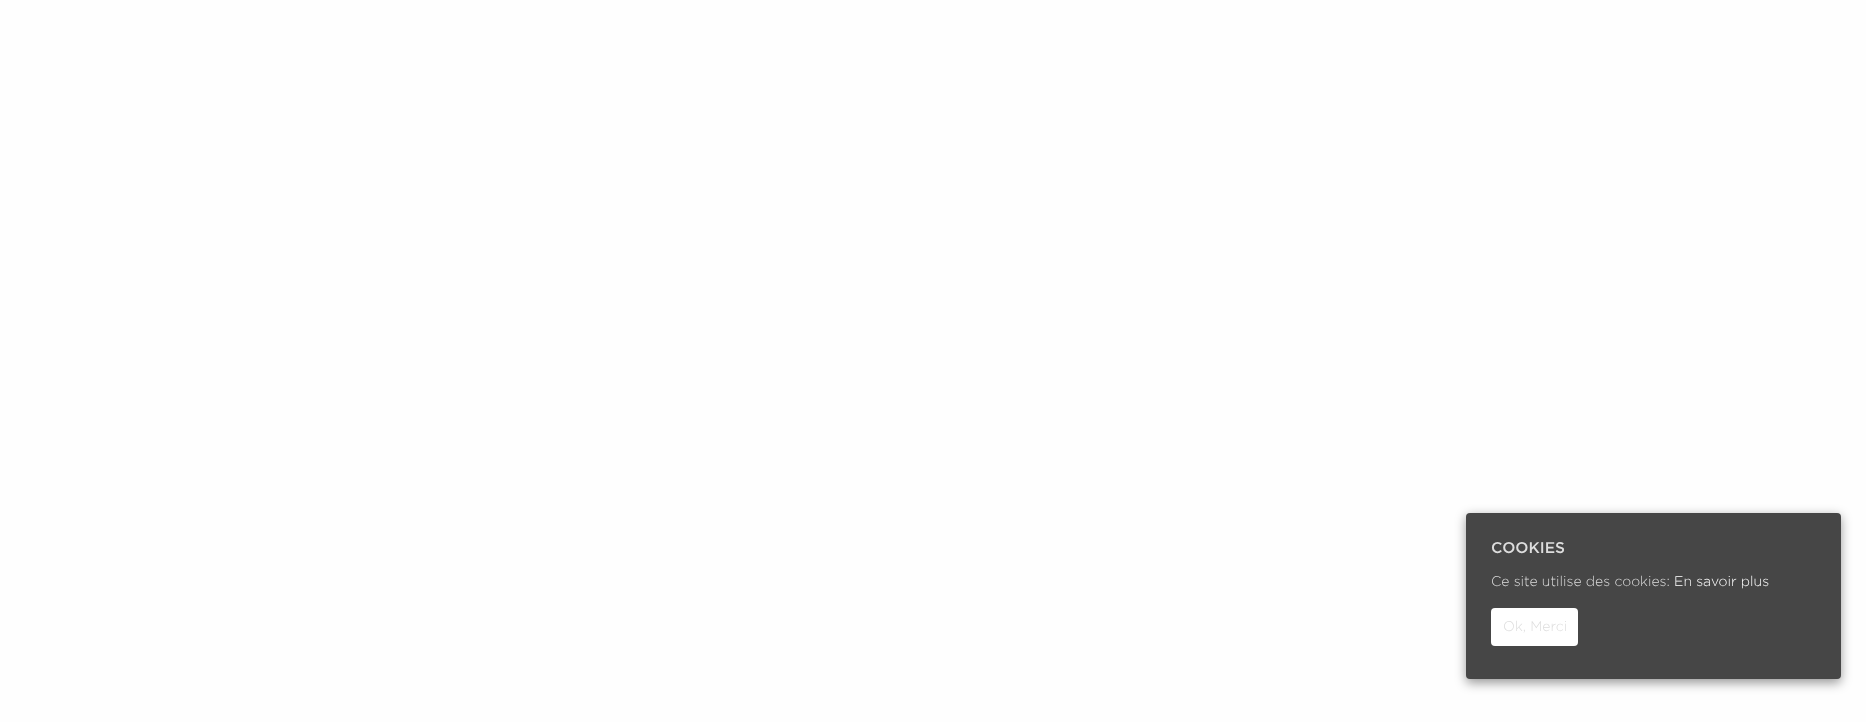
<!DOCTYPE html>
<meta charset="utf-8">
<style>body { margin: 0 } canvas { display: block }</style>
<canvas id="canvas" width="1866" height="722"></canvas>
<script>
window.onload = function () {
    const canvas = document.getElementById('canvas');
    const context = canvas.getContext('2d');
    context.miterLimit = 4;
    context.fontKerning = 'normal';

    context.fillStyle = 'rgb(254, 254, 254)';
    context.fillRect(0, 0, 1866, 722);
    context.fillStyle = 'rgba(0, 0, 0, 0.4)';
    context.filter = 'blur(5.5px)';
    context.beginPath();
    context.roundRect(1466, 516, 375, 167, 4);
    context.fill();
    context.filter = 'none';
    context.fillStyle = 'rgb(70, 70, 70)';
    context.beginPath();
    context.roundRect(1466, 513, 375, 166, 4);
    context.fill();
    context.fillStyle = 'rgb(255, 255, 255)';
    context.beginPath();
    context.roundRect(1491, 608, 87, 38, 4);
    context.fill();
    context.font = '500 15.5px Gotham';
    context.fillStyle = 'rgb(221, 221, 221)';
    context.fillText('COOKIES', 1491, 553);
    context.font = '300 14px Gotham';
    context.fillText('Ce site utilise des cookies:', 1491, 586);
    context.fillStyle = 'rgb(255, 255, 255)';
    context.fillText('En savoir plus', 1674, 586);
    context.fillStyle = 'rgb(221, 221, 221)';
    context.fillText('Ok, Merci', 1503, 631);
};
</script>
